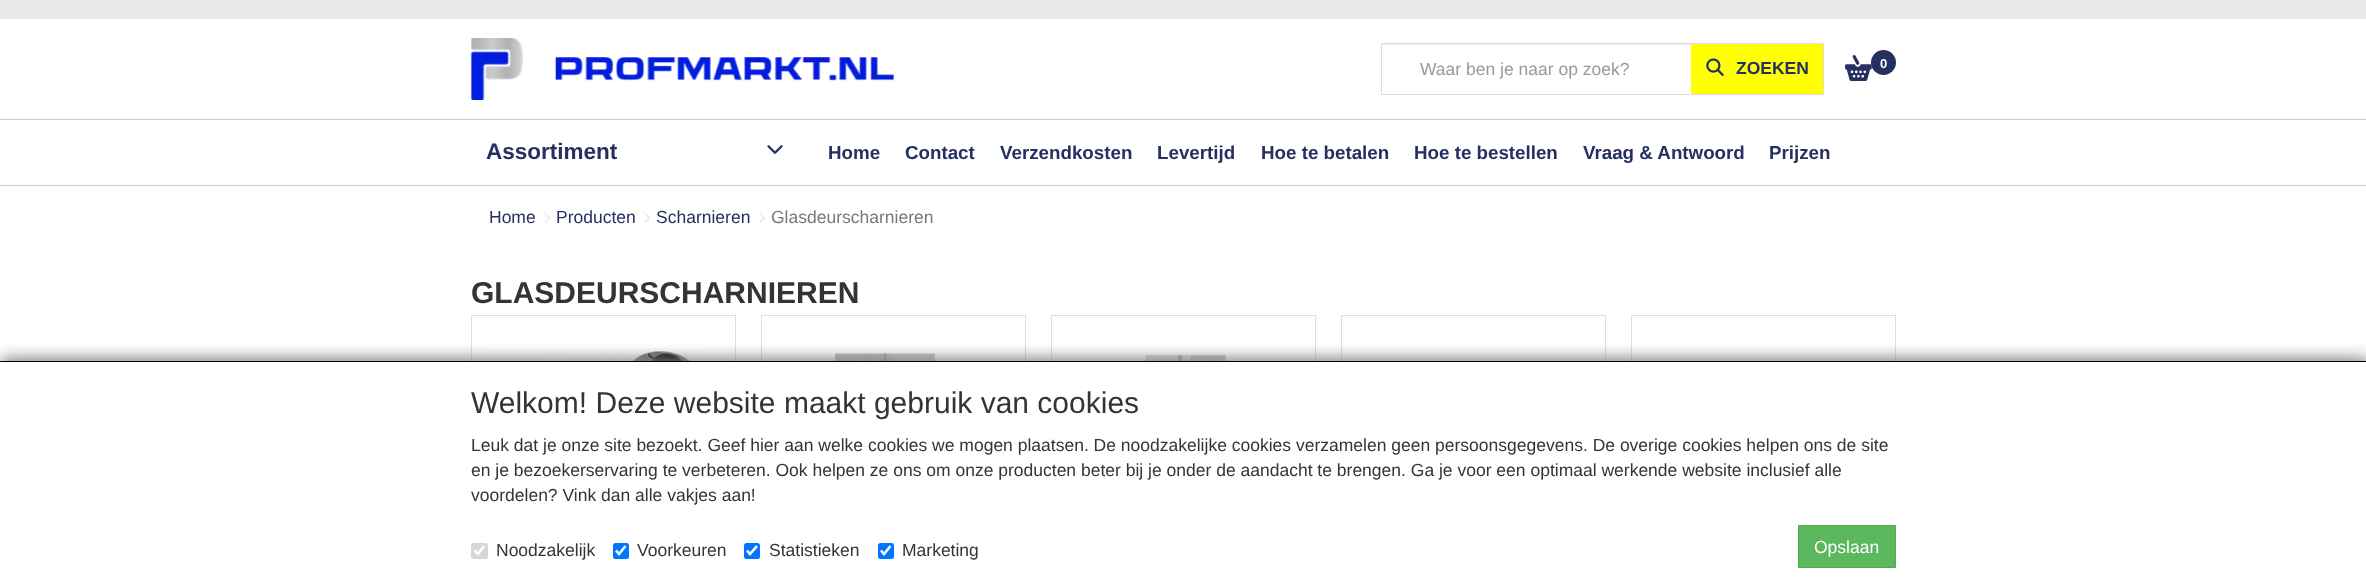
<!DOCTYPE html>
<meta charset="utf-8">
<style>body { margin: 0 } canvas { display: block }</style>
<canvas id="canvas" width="2366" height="584"></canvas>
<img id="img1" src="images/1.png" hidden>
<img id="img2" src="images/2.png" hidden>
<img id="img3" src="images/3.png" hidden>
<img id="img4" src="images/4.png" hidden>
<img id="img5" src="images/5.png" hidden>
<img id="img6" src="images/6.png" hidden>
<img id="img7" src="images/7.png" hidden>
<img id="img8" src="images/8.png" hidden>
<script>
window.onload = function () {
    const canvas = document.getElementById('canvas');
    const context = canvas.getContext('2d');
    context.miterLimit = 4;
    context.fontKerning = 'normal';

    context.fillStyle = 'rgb(255, 255, 255)';
    context.fillRect(0, 0, 2366, 584);
    context.fillStyle = 'rgb(234, 234, 235)';
    context.fillRect(0, 0, 2366, 19);
    context.drawImage(document.getElementById('img1'), 470, 38, 424, 62);
    context.strokeStyle = 'rgb(221, 221, 221)';
    context.strokeRect(1381.5, 43.5, 442, 51);
    context.fillStyle = 'rgb(235, 235, 235)';
    context.fillRect(1383, 44, 312, 1);
    context.fillStyle = 'rgb(255, 255, 0)';
    context.fillRect(1691, 44, 132, 50);
    context.drawImage(document.getElementById('img2'), 1706, 58, 18, 18);
    context.drawImage(document.getElementById('img3'), 1845, 55, 27, 26);
    context.fillStyle = 'rgb(37, 47, 96)';
    context.beginPath();
    context.arc(1883.5, 62.5, 12.5, 0, 2 * Math.PI);
    context.fill();
    context.fillStyle = 'rgb(204, 204, 204)';
    context.fillRect(0, 119, 2366, 1);
    context.fillRect(0, 185, 2366, 1);
    context.drawImage(document.getElementById('img4'), 767, 145, 16, 9);
    context.drawImage(document.getElementById('img5'), 544, 212, 6, 11);
    context.drawImage(document.getElementById('img5'), 644, 212, 6, 11);
    context.drawImage(document.getElementById('img5'), 759, 212, 6, 11);
    context.strokeRect(471.5, 315.5, 264, 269);
    context.drawImage(document.getElementById('img6'), 494, 349, 207, 12);
    context.strokeRect(761.5, 315.5, 264, 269);
    context.drawImage(document.getElementById('img7'), 835, 353, 101, 8);
    context.strokeRect(1051.5, 315.5, 264, 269);
    context.drawImage(document.getElementById('img8'), 1145, 355, 82, 6);
    context.strokeRect(1341.5, 315.5, 264, 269);
    context.strokeRect(1631.5, 315.5, 264, 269);
    context.fillStyle = 'rgb(128, 128, 128)';
    context.filter = 'blur(7.5px)';
    context.beginPath();
    context.rect(1, 358, 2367, 223);
    context.fill();
    context.filter = 'none';
    context.fillStyle = 'rgb(255, 255, 255)';
    context.fillRect(0, 362, 2366, 222);
    context.fillStyle = 'rgb(0, 0, 0)';
    context.fillRect(0, 361, 2366, 1);
    context.fillStyle = 'rgb(214, 214, 214)';
    context.beginPath();
    context.roundRect(471, 543, 17, 16, 2.5);
    context.fill();
    context.beginPath();
    context.moveTo(474.5, 550.5);
    context.lineTo(478, 554);
    context.lineTo(484, 546);
    context.strokeStyle = 'rgb(255, 255, 255)';
    context.lineWidth = 2.6;
    context.stroke();
    context.fillStyle = 'rgb(0, 117, 255)';
    context.beginPath();
    context.roundRect(613, 543, 16, 16, 2.5);
    context.fill();
    context.beginPath();
    context.moveTo(616, 550.5);
    context.lineTo(619, 554);
    context.lineTo(625.5, 546);
    context.stroke();
    context.beginPath();
    context.roundRect(744, 543, 16, 16, 2.5);
    context.fill();
    context.beginPath();
    context.moveTo(747, 550.5);
    context.lineTo(750, 554);
    context.lineTo(757, 546);
    context.stroke();
    context.beginPath();
    context.roundRect(878, 543, 16, 16, 2.5);
    context.fill();
    context.beginPath();
    context.moveTo(881, 550.5);
    context.lineTo(884, 554);
    context.lineTo(890.5, 546);
    context.stroke();
    context.fillStyle = 'rgb(92, 184, 92)';
    context.beginPath();
    context.rect(1798.5, 525.5, 97, 42);
    context.fill();
    context.strokeStyle = 'rgb(76, 174, 76)';
    context.lineWidth = 1;
    context.stroke();
    context.font = '17.5px Liberation Sans';
    context.fillStyle = 'rgb(153, 153, 153)';
    context.fillText('Waar ben je naar op zoek?', 1420, 75);
    context.font = 'bold 17.5px Liberation Sans';
    context.fillStyle = 'rgb(37, 47, 96)';
    context.fillText('ZOEKEN', 1736, 74);
    context.font = 'bold 13px Liberation Sans';
    context.fillStyle = 'rgb(255, 255, 255)';
    context.fillText('0', 1880, 68);
    context.font = 'bold 22.5px Liberation Sans';
    context.fillStyle = 'rgb(37, 47, 96)';
    context.fillText('Assortiment', 486, 159);
    context.font = 'bold 18.75px Liberation Sans';
    context.fillText('Home', 828, 159);
    context.fillText('Contact', 905, 159);
    context.fillText('Verzendkosten', 1000, 159);
    context.fillText('Levertijd', 1157, 159);
    context.fillText('Hoe te betalen', 1261, 159);
    context.fillText('Hoe te bestellen', 1414, 159);
    context.fillText('Vraag & Antwoord', 1583, 159);
    context.fillText('Prijzen', 1769, 159);
    context.font = '17.5px Liberation Sans';
    context.fillText('Home', 489, 223);
    context.fillText('Producten', 556, 223);
    context.fillText('Scharnieren', 656, 223);
    context.fillStyle = 'rgb(120, 120, 120)';
    context.fillText('Glasdeurscharnieren', 771, 223);
    context.font = 'bold 30px Liberation Sans';
    context.fillStyle = 'rgb(52, 52, 52)';
    context.fillText('GLASDEURSCHARNIEREN', 471, 303);
    context.font = '30px Liberation Sans';
    context.fillText('Welkom! Deze website maakt gebruik van cookies', 471, 413);
    context.font = '17.5px Liberation Sans';
    context.fillText('Leuk dat je onze site bezoekt. Geef hier aan welke cookies we mogen plaatsen. De noodzakelijke cookies verzamelen geen persoonsgegevens. De overige cookies helpen ons de site', 471, 451);
    context.fillText('en je bezoekerservaring te verbeteren. Ook helpen ze ons om onze producten beter bij je onder de aandacht te brengen. Ga je voor een optimaal werkende website inclusief alle', 471, 476);
    context.fillText('voordelen? Vink dan alle vakjes aan!', 471, 501);
    context.fillText('Noodzakelijk', 496, 556);
    context.fillText('Voorkeuren', 637, 556);
    context.fillText('Statistieken', 769, 556);
    context.fillText('Marketing', 902, 556);
    context.fillStyle = 'rgb(255, 255, 255)';
    context.fillText('Opslaan', 1814, 553);
};
</script>
